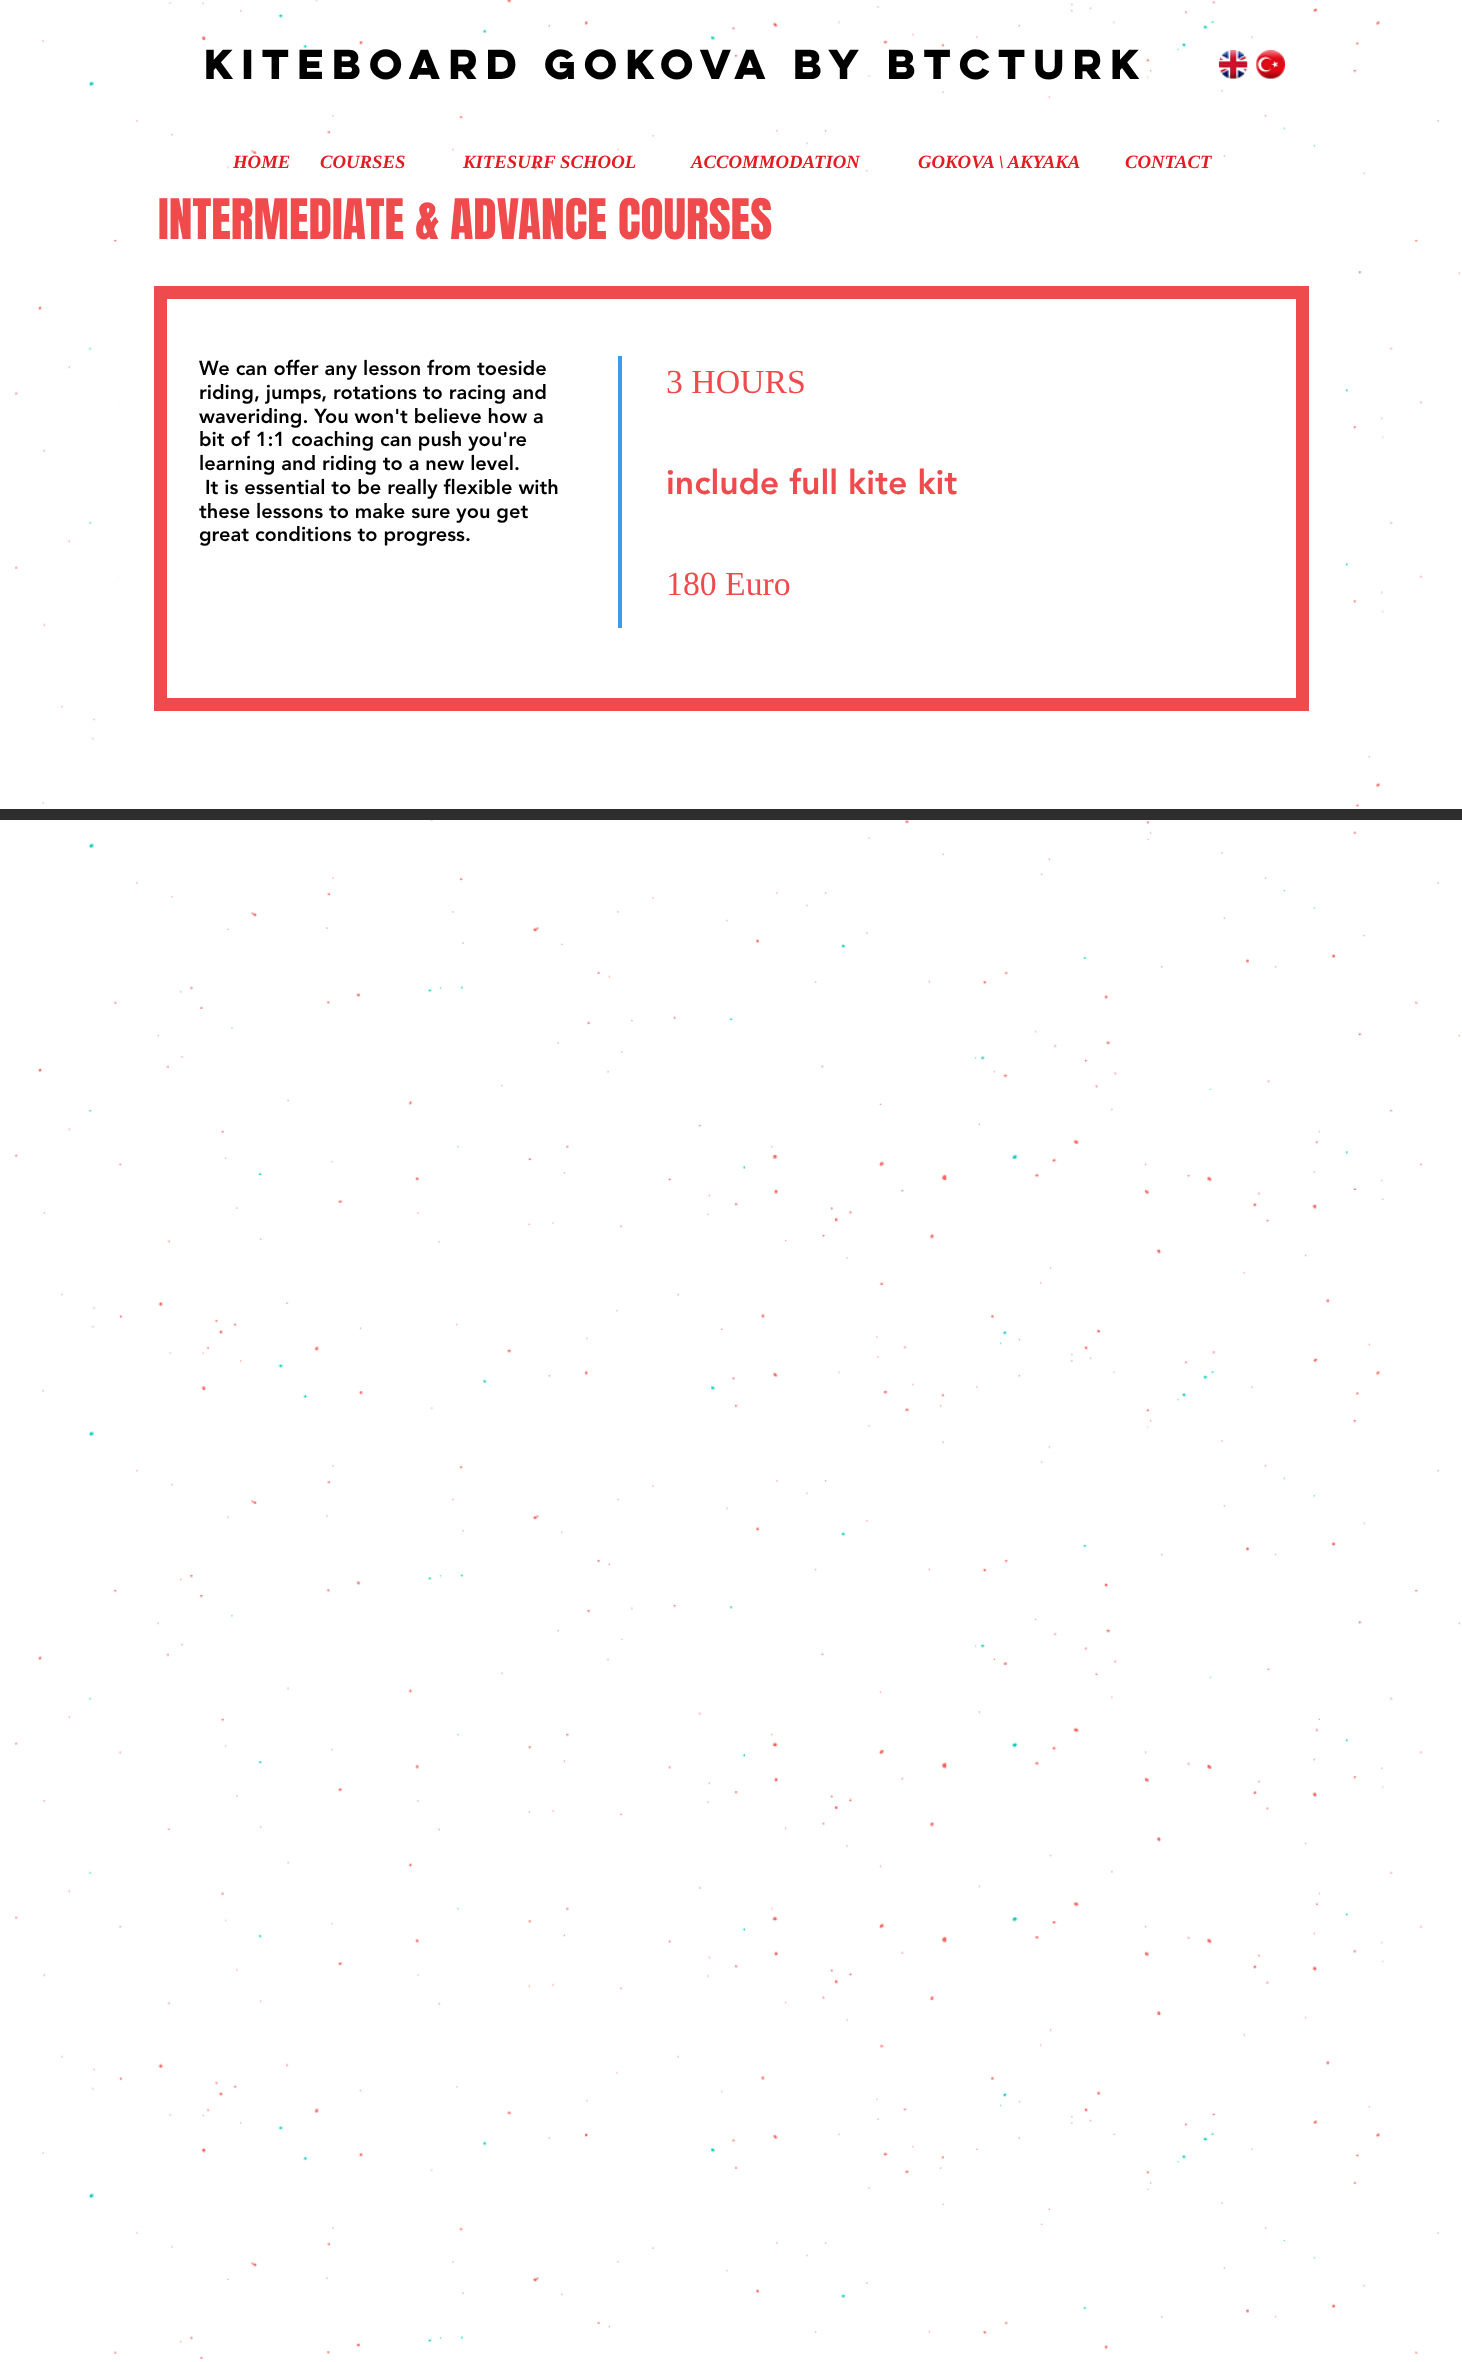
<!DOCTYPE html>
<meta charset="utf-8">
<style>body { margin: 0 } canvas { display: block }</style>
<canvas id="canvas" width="1462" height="2362"></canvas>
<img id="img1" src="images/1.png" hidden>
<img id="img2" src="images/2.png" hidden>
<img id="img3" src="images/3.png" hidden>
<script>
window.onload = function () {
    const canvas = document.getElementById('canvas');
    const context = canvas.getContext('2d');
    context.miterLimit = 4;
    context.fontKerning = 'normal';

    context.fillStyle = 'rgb(255, 255, 255)';
    context.fillRect(0, 0, 1462, 2362);
    context.drawImage(document.getElementById('img1'), 0, 0, 1461, 2359);
    context.drawImage(document.getElementById('img2'), 1218, 50, 30, 29);
    context.drawImage(document.getElementById('img3'), 1256, 50, 29, 29);
    context.fillRect(119, 184, 1217, 625);
    context.strokeStyle = 'rgb(255, 255, 255)';
    context.lineWidth = 13;
    context.strokeRect(210.5, 106.5, 1116, 72);
    context.strokeStyle = 'rgb(239, 75, 77)';
    context.strokeRect(160.5, 292.5, 1142, 412);
    context.fillStyle = 'rgb(61, 155, 233)';
    context.fillRect(618, 356, 4, 272);
    context.fillStyle = 'rgb(47, 46, 46)';
    context.fillRect(0, 809, 1462, 11);
    context.font = 'bold 37.5px "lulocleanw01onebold"';
    context.fillStyle = 'rgb(0, 0, 0)';
    context.fillText('kiteboard gokova by btcturk', 204, 79);
    context.font = 'italic bold 18.75px Liberation Serif';
    context.fillStyle = 'rgb(226, 28, 33)';
    context.fillText('HOME', 233, 168);
    context.fillText('COURSES', 320, 168);
    context.fillText('KITESURF SCHOOL', 463, 168);
    context.fillText('ACCOMMODATION', 691, 168);
    context.fillText('GOKOVA \\ AKYAKA', 918, 168);
    context.fillText('CONTACT', 1125, 168);
    context.font = '47.5px Anton';
    context.fillStyle = 'rgb(239, 75, 77)';
    context.fillText('INTERMEDIATE & ADVANCE COURSES', 158, 239);
    context.font = '900 20px "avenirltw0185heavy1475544"';
    context.fillStyle = 'rgb(0, 0, 0)';
    context.fillText('We can offer any lesson from toeside', 199, 375);
    context.fillText('riding, jumps, rotations to racing and', 199, 399);
    context.fillText('waveriding. You won\'t believe how a', 199, 423);
    context.fillText('bit of 1:1 coaching can push you\'re', 199, 446);
    context.fillText('learning and riding to a new level.', 199, 470);
    context.fillText('It is essential to be really flexible with', 205, 494);
    context.fillText('these lessons to make sure you get', 199, 518);
    context.fillText('great conditions to progress.', 199, 541);
    context.font = '33.75px Liberation Serif';
    context.fillStyle = 'rgb(239, 75, 77)';
    context.fillText('3 HOURS', 666, 393);
    context.font = '900 33.75px "avenirltw0185heavy1475544"';
    context.fillText('include full kite kit', 666, 494);
    context.font = '33.75px Liberation Serif';
    context.fillText('180 Euro', 666, 595);
};
</script>
